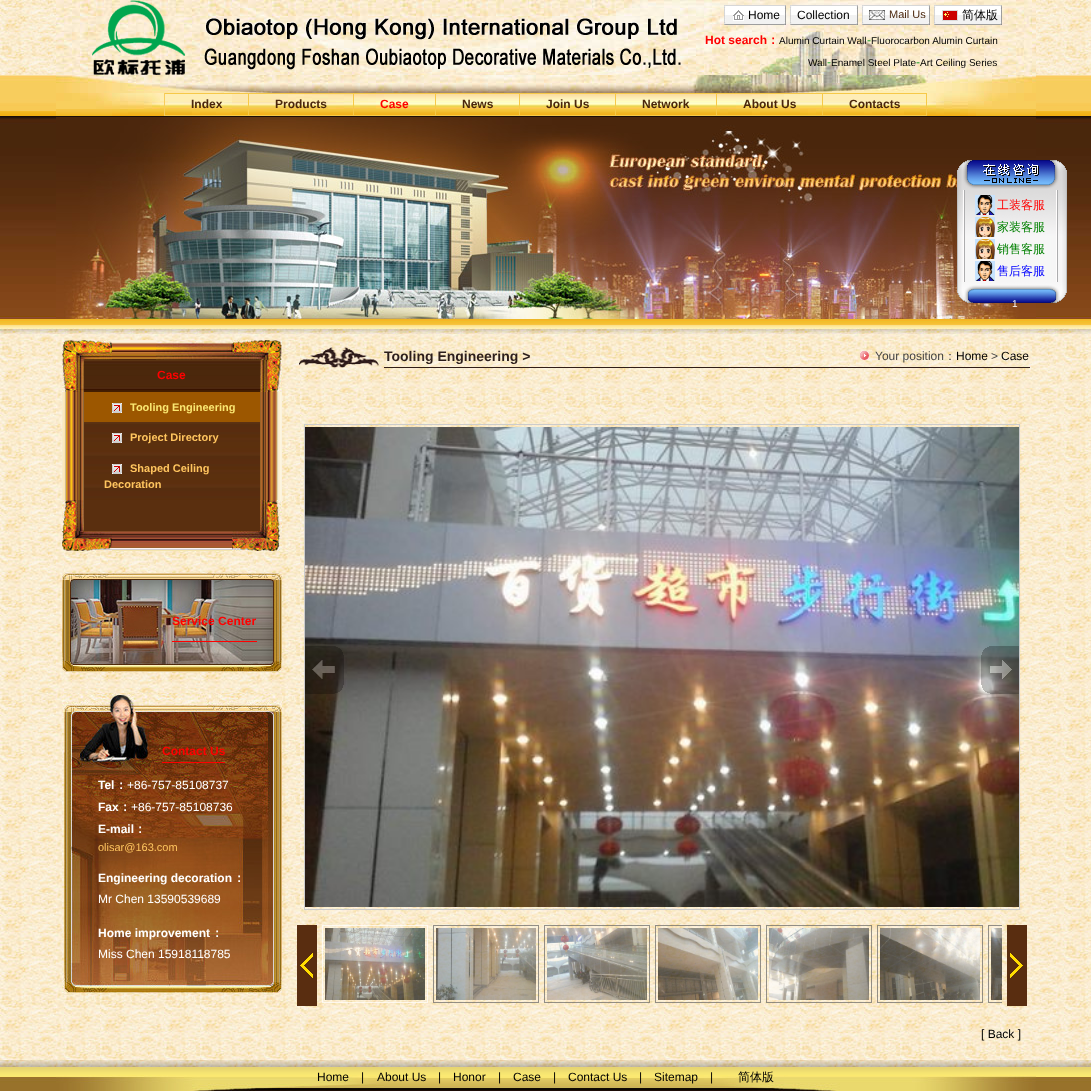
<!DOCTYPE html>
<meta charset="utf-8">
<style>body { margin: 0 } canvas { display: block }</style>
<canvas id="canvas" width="1091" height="1091"></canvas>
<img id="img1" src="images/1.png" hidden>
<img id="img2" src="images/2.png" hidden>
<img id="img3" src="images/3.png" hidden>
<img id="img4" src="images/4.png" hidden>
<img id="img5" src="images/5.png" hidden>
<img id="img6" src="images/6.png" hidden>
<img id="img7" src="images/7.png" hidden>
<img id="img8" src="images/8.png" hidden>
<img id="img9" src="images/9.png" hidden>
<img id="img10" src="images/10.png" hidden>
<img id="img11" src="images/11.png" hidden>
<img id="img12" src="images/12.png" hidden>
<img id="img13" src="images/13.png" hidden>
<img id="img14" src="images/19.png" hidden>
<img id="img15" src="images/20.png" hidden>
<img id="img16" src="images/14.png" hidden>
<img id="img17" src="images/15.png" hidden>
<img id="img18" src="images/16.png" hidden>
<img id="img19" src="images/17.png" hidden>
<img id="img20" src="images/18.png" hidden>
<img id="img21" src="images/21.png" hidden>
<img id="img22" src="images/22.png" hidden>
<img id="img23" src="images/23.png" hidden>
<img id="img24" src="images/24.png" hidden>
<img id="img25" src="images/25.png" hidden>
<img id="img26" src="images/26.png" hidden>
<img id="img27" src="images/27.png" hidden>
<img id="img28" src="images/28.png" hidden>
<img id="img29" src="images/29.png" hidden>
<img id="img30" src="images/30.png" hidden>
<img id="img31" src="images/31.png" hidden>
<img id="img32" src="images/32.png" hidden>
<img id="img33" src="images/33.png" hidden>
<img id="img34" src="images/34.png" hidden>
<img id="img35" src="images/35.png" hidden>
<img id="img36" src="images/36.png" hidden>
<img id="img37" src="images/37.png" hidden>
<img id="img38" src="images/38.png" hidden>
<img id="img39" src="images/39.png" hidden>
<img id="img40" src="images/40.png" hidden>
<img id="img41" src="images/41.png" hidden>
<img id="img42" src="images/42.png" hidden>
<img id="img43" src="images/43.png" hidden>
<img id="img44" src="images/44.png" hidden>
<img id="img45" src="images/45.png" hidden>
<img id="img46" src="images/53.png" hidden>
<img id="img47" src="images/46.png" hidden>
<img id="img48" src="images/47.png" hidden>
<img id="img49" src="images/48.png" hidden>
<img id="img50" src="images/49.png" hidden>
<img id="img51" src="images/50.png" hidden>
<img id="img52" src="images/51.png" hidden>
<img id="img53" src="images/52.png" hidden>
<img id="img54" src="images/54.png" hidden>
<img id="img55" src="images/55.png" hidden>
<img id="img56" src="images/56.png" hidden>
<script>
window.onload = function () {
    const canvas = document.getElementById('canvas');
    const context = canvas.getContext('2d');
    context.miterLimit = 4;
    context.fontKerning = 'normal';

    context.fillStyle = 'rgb(255, 255, 255)';
    context.fillRect(0, 0, 1091, 1091);
    context.drawImage(document.getElementById('img1'), 0, 0, 1091, 1060);
    context.drawImage(document.getElementById('img2'), 56, 0, 980, 75);
    context.drawImage(document.getElementById('img3'), 92, 0, 589, 75);
    context.drawImage(document.getElementById('img4'), 724, 5, 2, 20);
    context.drawImage(document.getElementById('img5'), 726, 5, 58, 20);
    context.drawImage(document.getElementById('img6'), 733, 10, 11, 11);
    context.drawImage(document.getElementById('img7'), 784, 5, 2, 20);
    context.drawImage(document.getElementById('img4'), 790, 5, 2, 20);
    context.drawImage(document.getElementById('img8'), 792, 5, 64, 20);
    context.drawImage(document.getElementById('img7'), 856, 5, 2, 20);
    context.drawImage(document.getElementById('img4'), 862, 5, 2, 20);
    context.drawImage(document.getElementById('img8'), 864, 5, 64, 20);
    context.drawImage(document.getElementById('img9'), 869, 10, 16, 10);
    context.drawImage(document.getElementById('img7'), 928, 5, 2, 20);
    context.drawImage(document.getElementById('img4'), 934, 5, 2, 20);
    context.drawImage(document.getElementById('img8'), 936, 5, 64, 20);
    context.drawImage(document.getElementById('img10'), 942, 10, 16, 11);
    context.drawImage(document.getElementById('img7'), 1000, 5, 2, 20);
    context.drawImage(document.getElementById('img11'), 0, 75, 1091, 41);
    context.drawImage(document.getElementById('img12'), 56, 75, 980, 18);
    context.drawImage(document.getElementById('img13'), 56, 93, 980, 23);
    context.fillStyle = 'rgb(247, 205, 93)';
    context.fillRect(164, 93, 1, 23);
    context.fillStyle = 'rgb(246, 201, 72)';
    context.fillRect(165, 93, 762, 1);
    context.fillRect(248, 93, 1, 23);
    context.fillRect(165, 115, 84, 1);
    context.fillRect(353, 93, 1, 23);
    context.fillRect(249, 115, 105, 1);
    context.fillRect(435, 93, 1, 23);
    context.fillRect(354, 115, 82, 1);
    context.fillRect(519, 93, 1, 23);
    context.fillRect(436, 115, 84, 1);
    context.fillRect(615, 93, 1, 23);
    context.fillRect(520, 115, 96, 1);
    context.fillRect(716, 93, 1, 23);
    context.fillRect(616, 115, 101, 1);
    context.fillRect(822, 93, 1, 23);
    context.fillRect(717, 115, 106, 1);
    context.fillRect(926, 93, 1, 23);
    context.fillRect(823, 115, 104, 1);
    context.drawImage(document.getElementById('img14'), 0, 116, 1091, 204);
    context.drawImage(document.getElementById('img15'), 56, 117, 980, 202);
    context.drawImage(document.getElementById('img16'), 957, 160, 110, 29);
    context.drawImage(document.getElementById('img17'), 957, 189, 110, 93);
    context.drawImage(document.getElementById('img18'), 975, 195, 20, 20);
    context.drawImage(document.getElementById('img19'), 975, 217, 20, 20);
    context.drawImage(document.getElementById('img19'), 975, 239, 20, 20);
    context.drawImage(document.getElementById('img18'), 975, 261, 20, 20);
    context.drawImage(document.getElementById('img20'), 957, 282, 110, 21);
    context.drawImage(document.getElementById('img21'), 0, 320, 1091, 14);
    context.drawImage(document.getElementById('img22'), 62, 340, 50, 20);
    context.drawImage(document.getElementById('img23'), 112, 340, 44, 20);
    context.drawImage(document.getElementById('img24'), 156, 340, 76, 20);
    context.drawImage(document.getElementById('img25'), 232, 340, 50, 20);
    context.drawImage(document.getElementById('img26'), 62, 360, 22, 32);
    context.drawImage(document.getElementById('img27'), 84, 360, 176, 32);
    context.drawImage(document.getElementById('img28'), 260, 360, 22, 32);
    context.drawImage(document.getElementById('img29'), 62, 392, 22, 108);
    context.drawImage(document.getElementById('img30'), 84, 422, 176, 78);
    context.fillStyle = 'rgb(156, 87, 0)';
    context.fillRect(84, 392, 176, 30);
    context.drawImage(document.getElementById('img31'), 112, 403, 10, 10);
    context.drawImage(document.getElementById('img31'), 112, 433, 10, 10);
    context.drawImage(document.getElementById('img31'), 112, 464, 10, 10);
    context.drawImage(document.getElementById('img32'), 260, 392, 22, 108);
    context.drawImage(document.getElementById('img33'), 62, 500, 22, 31);
    context.fillStyle = 'rgb(90, 47, 15)';
    context.fillRect(84, 500, 176, 31);
    context.drawImage(document.getElementById('img34'), 260, 500, 22, 31);
    context.drawImage(document.getElementById('img35'), 62, 531, 50, 20);
    context.drawImage(document.getElementById('img36'), 112, 531, 120, 20);
    context.drawImage(document.getElementById('img37'), 232, 531, 50, 20);
    context.drawImage(document.getElementById('img38'), 62, 573, 220, 99);
    context.fillStyle = 'rgb(255, 0, 0)';
    context.fillRect(172, 641, 85, 1);
    context.drawImage(document.getElementById('img39'), 62, 693, 220, 300);
    context.fillRect(162, 762, 63, 1);
    context.drawImage(document.getElementById('img40'), 299, 347, 80, 21);
    context.drawImage(document.getElementById('img41'), 860, 351, 9, 9);
    context.fillStyle = 'rgb(49, 30, 24)';
    context.fillRect(384, 367, 646, 1);
    context.strokeStyle = 'rgb(204, 204, 204)';
    context.strokeRect(304.5, 424.5, 715, 485);
    context.drawImage(document.getElementById('img42'), 305, 427, 714, 480);
    context.drawImage(document.getElementById('img43'), 305, 646, 39, 48);
    context.drawImage(document.getElementById('img44'), 981, 646, 38, 48);
    context.fillStyle = 'rgb(89, 45, 16)';
    context.fillRect(297, 925, 20, 81);
    context.drawImage(document.getElementById('img45'), 300, 953, 13, 25);
    context.strokeStyle = 'rgba(255, 255, 255, 0.7)';
    context.strokeRect(322.5, 925.5, 105, 77);
    context.strokeStyle = 'rgba(102, 102, 102, 0.7)';
    context.strokeRect(433.5, 925.5, 105, 77);
    context.strokeRect(544.5, 925.5, 105, 77);
    context.strokeRect(655.5, 925.5, 105, 77);
    context.strokeRect(766.5, 925.5, 105, 77);
    context.strokeRect(877.5, 925.5, 105, 77);
    context.fillRect(1007, 925, 20, 81);
    context.drawImage(document.getElementById('img46'), 1010, 953, 13, 25);
    context.save();
    context.beginPath();
    context.rect(322, 925, 680, 81);
    context.clip();
    context.strokeRect(988.5, 925.5, 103, 77);
    context.restore();
    context.drawImage(document.getElementById('img47'), 325, 928, 100, 72);
    context.drawImage(document.getElementById('img48'), 436, 928, 100, 72);
    context.drawImage(document.getElementById('img49'), 547, 928, 100, 72);
    context.drawImage(document.getElementById('img50'), 658, 928, 100, 72);
    context.drawImage(document.getElementById('img51'), 769, 928, 100, 72);
    context.drawImage(document.getElementById('img52'), 880, 928, 100, 72);
    context.drawImage(document.getElementById('img53'), 991, 928, 11, 72);
    context.drawImage(document.getElementById('img54'), 0, 1060, 1091, 7);
    context.drawImage(document.getElementById('img55'), 0, 1067, 1091, 24);
    context.drawImage(document.getElementById('img56'), 56, 1075, 980, 16);
    context.font = '12px Liberation Sans';
    context.fillStyle = 'rgb(0, 0, 0)';
    context.fillText('Home', 748, 19);
    context.fillText('Collection', 797, 19);
    context.font = '11px Liberation Sans';
    context.fillStyle = 'rgb(74, 38, 12)';
    context.fillText('Mail Us', 889, 18);
    context.font = '500 12px WenQuanYi Zen Hei';
    context.fillStyle = 'rgb(0, 0, 0)';
    context.fillText('简体版', 962, 19);
    context.font = 'bold 12px Liberation Sans';
    context.fillStyle = 'rgb(255, 0, 0)';
    context.fillText('Hot search', 705, 44);
    context.font = 'bold 12px WenQuanYi Zen Hei';
    context.fillText('：', 767, 44);
    context.font = '10px Liberation Sans';
    context.fillStyle = 'rgb(0, 0, 0)';
    context.fillText('Alumin Curtain Wall', 779, 44);
    context.font = '12px Liberation Sans';
    context.fillStyle = 'rgb(15, 148, 27)';
    context.fillText('-', 867, 44);
    context.font = '10px Liberation Sans';
    context.fillStyle = 'rgb(0, 0, 0)';
    context.fillText('Fluorocarbon Alumin Curtain', 871, 44);
    context.fillText('Wall', 808, 66);
    context.font = '12px Liberation Sans';
    context.fillStyle = 'rgb(15, 148, 27)';
    context.fillText('-', 827, 66);
    context.font = '10px Liberation Sans';
    context.fillStyle = 'rgb(0, 0, 0)';
    context.fillText('Enamel Steel Plate', 831, 66);
    context.font = '12px Liberation Sans';
    context.fillStyle = 'rgb(15, 148, 27)';
    context.fillText('-', 916, 66);
    context.font = '10px Liberation Sans';
    context.fillStyle = 'rgb(0, 0, 0)';
    context.fillText('Art Ceiling Series', 920, 66);
    context.font = 'bold 12px Liberation Sans';
    context.fillStyle = 'rgb(74, 38, 12)';
    context.fillText('Index', 191, 108);
    context.fillText('Products', 275, 108);
    context.fillStyle = 'rgb(255, 0, 0)';
    context.fillText('Case', 380, 108);
    context.fillStyle = 'rgb(74, 38, 12)';
    context.fillText('News', 462, 108);
    context.fillText('Join Us', 546, 108);
    context.fillText('Network', 642, 108);
    context.fillText('About Us', 743, 108);
    context.fillText('Contacts', 849, 108);
    context.font = '500 12px WenQuanYi Zen Hei';
    context.fillStyle = 'rgb(255, 0, 0)';
    context.fillText('工装客服', 997, 209);
    context.fillStyle = 'rgb(0, 128, 0)';
    context.fillText('家装客服', 997, 231);
    context.fillText('销售客服', 997, 253);
    context.fillStyle = 'rgb(0, 0, 255)';
    context.fillText('售后客服', 997, 275);
    context.font = '10px Liberation Sans';
    context.fillStyle = 'rgb(255, 255, 255)';
    context.fillText('1', 1012, 307);
    context.font = 'bold 12px Liberation Sans';
    context.fillStyle = 'rgb(255, 0, 0)';
    context.fillText('Case', 157, 379);
    context.font = 'bold 11px Liberation Sans';
    context.fillStyle = 'rgb(250, 231, 113)';
    context.fillText('Tooling Engineering', 130, 411);
    context.fillStyle = 'rgb(255, 197, 95)';
    context.fillText('Project Directory', 130, 441);
    context.fillText('Shaped Ceiling', 130, 472);
    context.fillText('Decoration', 104, 488);
    context.font = 'bold 12px Liberation Sans';
    context.fillStyle = 'rgb(255, 0, 0)';
    context.fillText('Service Center', 172, 625);
    context.fillText('Contact Us', 162, 755);
    context.fillStyle = 'rgb(255, 255, 255)';
    context.fillText('Tel', 98, 789);
    context.font = 'bold 12px WenQuanYi Zen Hei';
    context.fillText('：', 115, 789);
    context.font = '12px Liberation Sans';
    context.fillText('+86-757-85108737', 127, 789);
    context.font = 'bold 12px Liberation Sans';
    context.fillText('Fax', 98, 811);
    context.font = 'bold 12px WenQuanYi Zen Hei';
    context.fillText('：', 119, 811);
    context.font = '12px Liberation Sans';
    context.fillText('+86-757-85108736', 131, 811);
    context.font = 'bold 12px Liberation Sans';
    context.fillText('E-mail', 98, 833);
    context.font = 'bold 12px WenQuanYi Zen Hei';
    context.fillText('：', 134, 833);
    context.font = '11px Liberation Sans';
    context.fillStyle = 'rgb(255, 197, 95)';
    context.fillText('olisar@163.com', 98, 851);
    context.font = 'bold 12px Liberation Sans';
    context.fillStyle = 'rgb(255, 255, 255)';
    context.fillText('Engineering decoration', 98, 882);
    context.font = 'bold 12px WenQuanYi Zen Hei';
    context.fillText('：', 233, 882);
    context.font = '12px Liberation Sans';
    context.fillText('Mr Chen 13590539689', 98, 903);
    context.font = 'bold 12px Liberation Sans';
    context.fillText('Home improvement', 98, 937);
    context.font = 'bold 12px WenQuanYi Zen Hei';
    context.fillText('：', 211, 937);
    context.font = '12px Liberation Sans';
    context.fillText('Miss Chen 15918118785', 98, 958);
    context.font = 'bold 14px Liberation Sans';
    context.fillStyle = 'rgb(44, 30, 27)';
    context.fillText('Tooling Engineering >', 384, 361);
    context.font = '12px Liberation Sans';
    context.fillStyle = 'rgb(69, 69, 69)';
    context.fillText('Your position', 875, 360);
    context.font = '500 12px WenQuanYi Zen Hei';
    context.fillText('：', 944, 360);
    context.font = '12px Liberation Sans';
    context.fillStyle = 'rgb(0, 0, 0)';
    context.fillText('Home', 956, 360);
    context.fillStyle = 'rgb(69, 69, 69)';
    context.fillText('>', 991, 360);
    context.fillStyle = 'rgb(0, 0, 0)';
    context.fillText('Case', 1001, 360);
    context.fillText('[ Back ]', 981, 1038);
    context.fillText('Home', 317, 1081);
    context.fillText('|', 361, 1081);
    context.fillText('About Us', 377, 1081);
    context.fillText('|', 438, 1081);
    context.fillText('Honor', 453, 1081);
    context.fillText('|', 498, 1081);
    context.fillText('Case', 513, 1081);
    context.fillText('|', 553, 1081);
    context.fillText('Contact Us', 568, 1081);
    context.fillText('|', 639, 1081);
    context.fillText('Sitemap', 654, 1081);
    context.fillText('|', 710, 1081);
    context.font = '500 12px WenQuanYi Zen Hei';
    context.fillText('简体版', 738, 1081);
};
</script>
